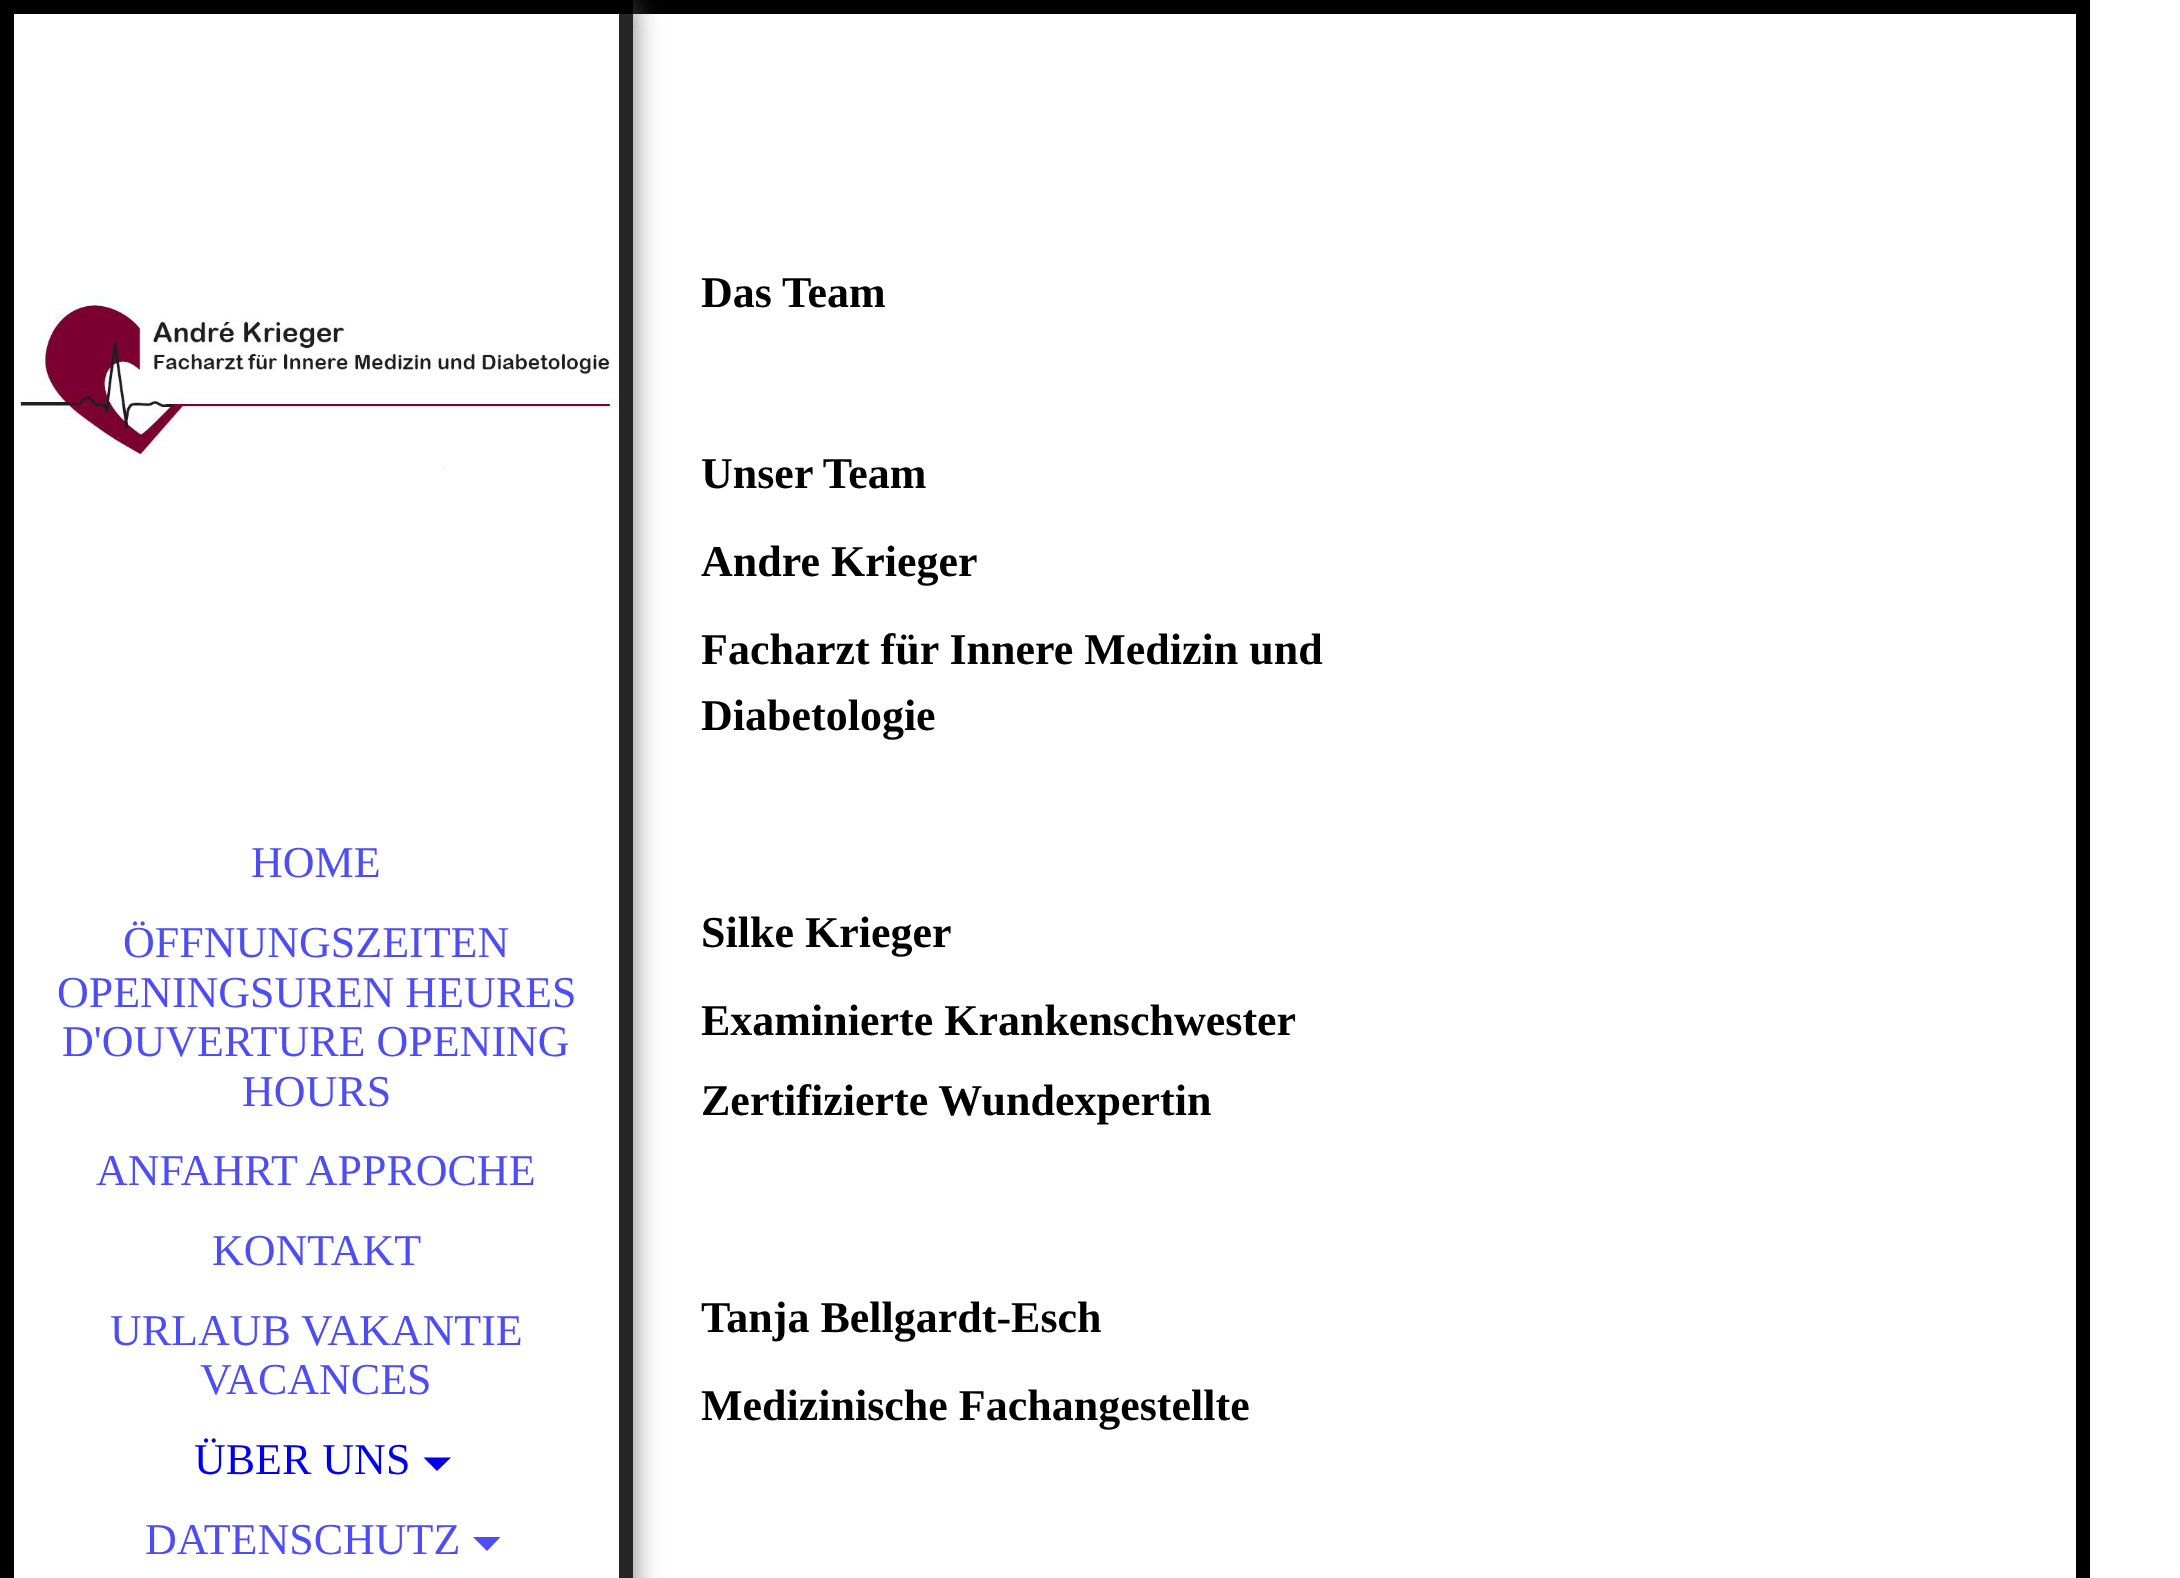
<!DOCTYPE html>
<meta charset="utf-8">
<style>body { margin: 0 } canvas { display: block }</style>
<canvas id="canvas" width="2180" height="1578"></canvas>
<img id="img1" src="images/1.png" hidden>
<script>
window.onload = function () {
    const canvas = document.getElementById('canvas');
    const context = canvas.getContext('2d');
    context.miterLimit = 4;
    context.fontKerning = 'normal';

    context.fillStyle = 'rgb(255, 255, 255)';
    context.fillRect(0, 0, 2180, 1578);
    context.strokeStyle = 'rgb(0, 0, 0)';
    context.lineWidth = 14;
    context.strokeRect(7, 7, 2076, 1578);
    context.save();
    context.beginPath();
    context.moveTo(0, 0);
    context.lineTo(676, 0);
    context.lineTo(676, 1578);
    context.lineTo(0, 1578);
    context.closePath();
    context.moveTo(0, 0);
    context.lineTo(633, 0);
    context.lineTo(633, 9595);
    context.lineTo(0, 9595);
    context.closePath();
    context.clip('evenodd');
    context.fillStyle = 'rgba(102, 102, 102, 0.85)';
    context.filter = 'blur(14px)';
    context.beginPath();
    context.rect(0, 0, 633, 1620);
    context.fill();
    context.filter = 'none';
    context.restore();
    context.fillStyle = 'rgba(0, 0, 0, 0.85)';
    context.fillRect(619, 0, 14, 1578);
    context.drawImage(document.getElementById('img1'), 20, 297, 598, 172);
    context.fillStyle = 'rgb(0, 0, 238)';
    context.beginPath();
    context.moveTo(423.5, 1457.5);
    context.lineTo(451, 1457.5);
    context.lineTo(437, 1471);
    context.closePath();
    context.fill();
    context.fillStyle = 'rgb(77, 77, 243)';
    context.beginPath();
    context.moveTo(473, 1537);
    context.lineTo(500.5, 1537);
    context.lineTo(487, 1551);
    context.closePath();
    context.fill();
    context.font = 'bold 44px Liberation Serif';
    context.fillStyle = 'rgb(0, 0, 0)';
    context.fillText('Das Team', 701, 307);
    context.fillText('Unser Team', 701, 488);
    context.fillText('Andre Krieger', 701, 576);
    context.fillText('Facharzt für Innere Medizin und', 701, 664);
    context.fillText('Diabetologie', 701, 730);
    context.fillText('Silke Krieger', 701, 947);
    context.fillText('Examinierte Krankenschwester', 701, 1035);
    context.fillText('Zertifizierte Wundexpertin', 701, 1115);
    context.fillText('Tanja Bellgardt-Esch', 701, 1332);
    context.fillText('Medizinische Fachangestellte', 701, 1420);
    context.font = '44px Liberation Serif';
    context.fillStyle = 'rgb(77, 77, 243)';
    context.fillText('HOME', 251, 877);
    context.fillText('ÖFFNUNGSZEITEN', 123, 957);
    context.fillText('OPENINGSUREN HEURES', 57, 1007);
    context.fillText('D\'OUVERTURE OPENING', 62, 1056);
    context.fillText('HOURS', 242, 1106);
    context.fillText('ANFAHRT APPROCHE', 96, 1185);
    context.fillText('KONTAKT', 212, 1265);
    context.fillText('URLAUB VAKANTIE', 110, 1345);
    context.fillText('VACANCES', 200, 1394);
    context.fillStyle = 'rgb(0, 0, 238)';
    context.fillText('ÜBER UNS', 194, 1474);
    context.fillStyle = 'rgb(77, 77, 243)';
    context.fillText('DATENSCHUTZ', 145, 1554);
};
</script>
